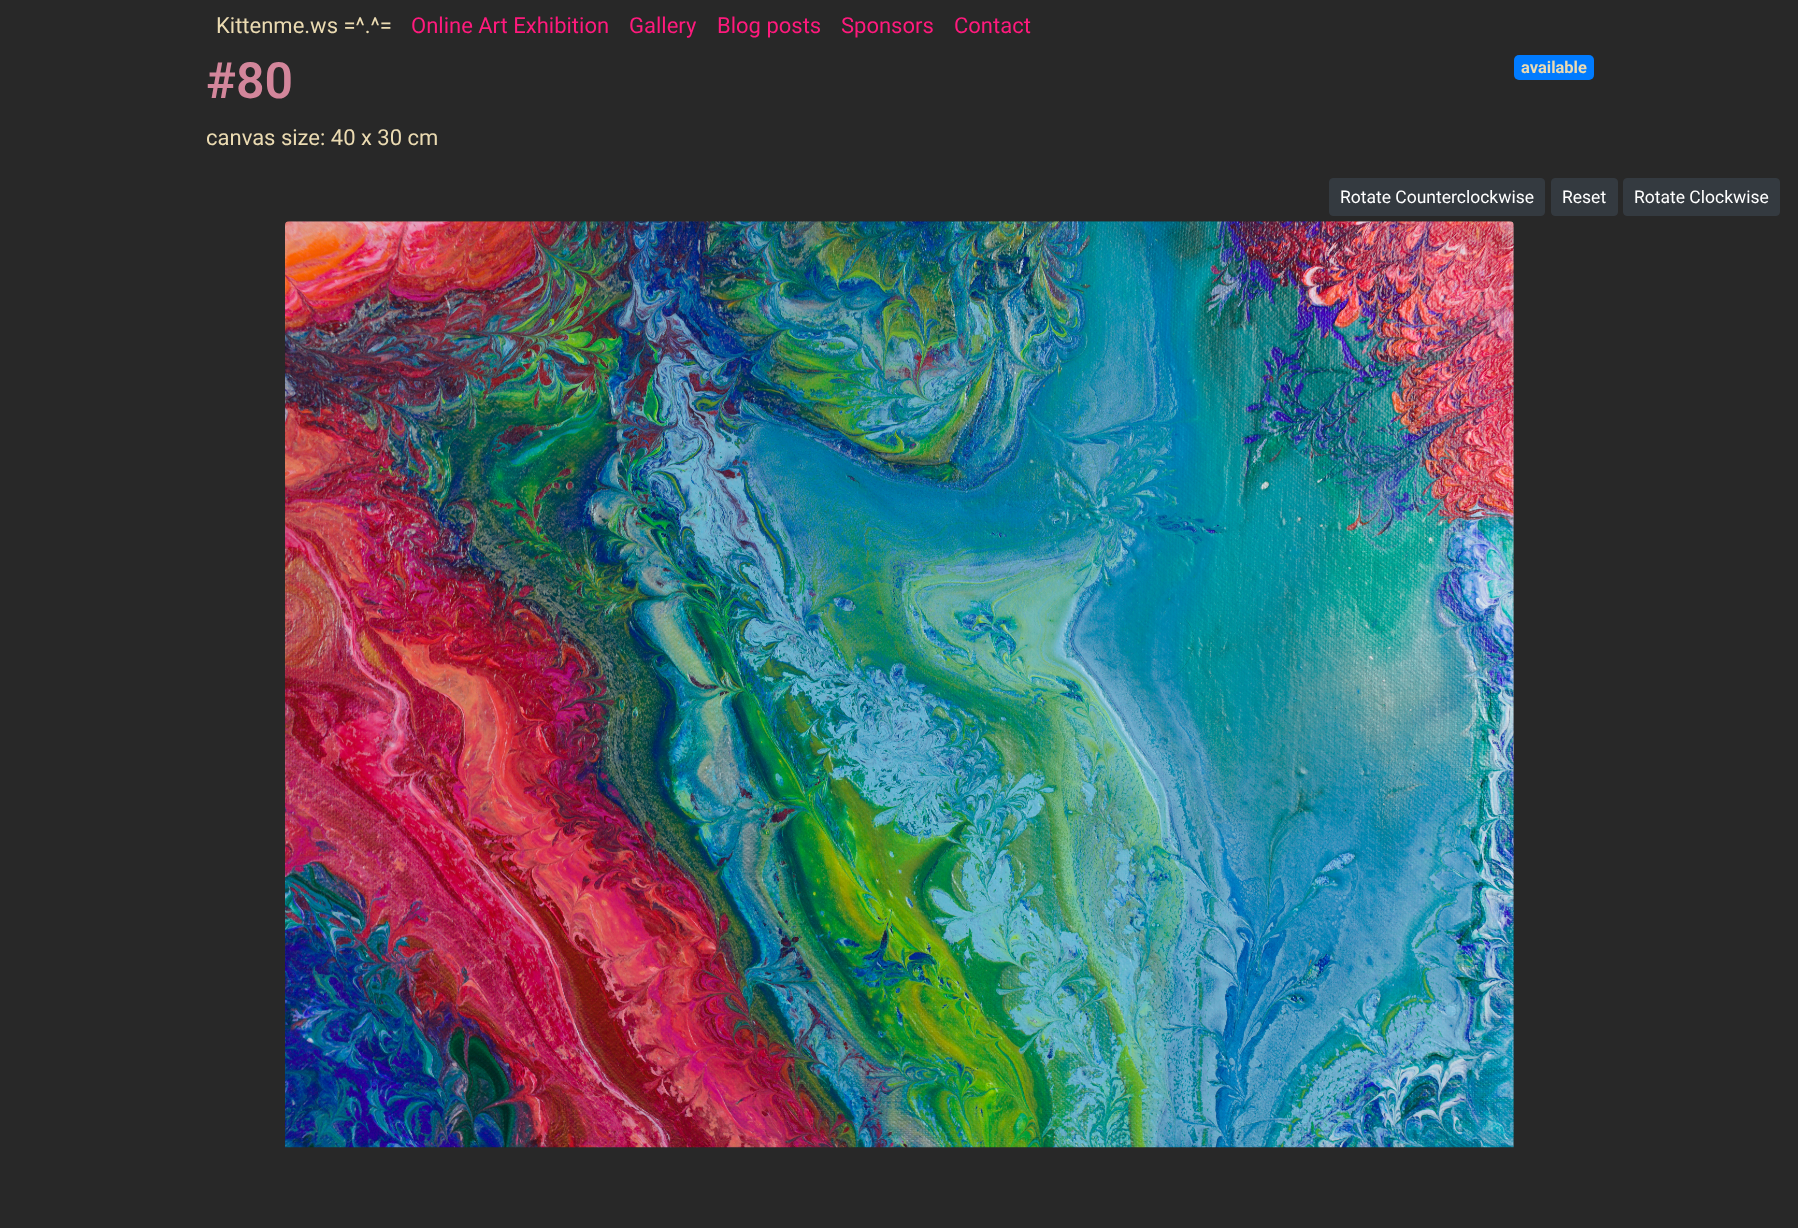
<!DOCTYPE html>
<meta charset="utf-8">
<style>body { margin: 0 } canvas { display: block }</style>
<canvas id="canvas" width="1798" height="1228"></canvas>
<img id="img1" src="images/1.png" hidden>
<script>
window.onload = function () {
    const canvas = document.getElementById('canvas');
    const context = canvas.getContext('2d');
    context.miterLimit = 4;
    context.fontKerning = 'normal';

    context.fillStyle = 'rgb(40, 40, 40)';
    context.fillRect(0, 0, 1798, 1228);
    context.fillStyle = 'rgb(0, 123, 255)';
    context.beginPath();
    context.roundRect(1514, 55, 80, 25, 5);
    context.fill();
    context.fillStyle = 'rgb(52, 58, 64)';
    context.beginPath();
    context.roundRect(1329.5, 178.5, 215, 37, 3.5);
    context.fill();
    context.strokeStyle = 'rgb(52, 58, 64)';
    context.stroke();
    context.beginPath();
    context.roundRect(1551.5, 178.5, 66, 37, 3.5);
    context.fill();
    context.stroke();
    context.beginPath();
    context.roundRect(1623.5, 178.5, 156, 37, 3.5);
    context.fill();
    context.stroke();
    context.drawImage(document.getElementById('img1'), 285, 221, 1229, 927);
    context.font = '22px Roboto';
    context.fillStyle = 'rgb(235, 219, 178)';
    context.fillText('Kittenme.ws =^.^=', 216, 33);
    context.fillStyle = 'rgb(255, 26, 125)';
    context.fillText('Online Art Exhibition', 411, 33);
    context.fillText('Gallery', 629, 33);
    context.fillText('Blog posts', 717, 33);
    context.fillText('Sponsors', 841, 33);
    context.fillText('Contact', 954, 33);
    context.font = '600 50px Roboto';
    context.fillStyle = 'rgb(211, 134, 155)';
    context.fillText('#80', 206, 98);
    context.font = 'bold 16.5px Roboto';
    context.fillStyle = 'rgb(235, 219, 178)';
    context.fillText('available', 1521, 73);
    context.font = '22px Roboto';
    context.fillText('canvas size: 40 x 30 cm', 206, 145);
    context.font = '17.5px Roboto';
    context.fillStyle = 'rgb(255, 255, 255)';
    context.fillText('Rotate Counterclockwise', 1340, 203);
    context.fillText('Reset', 1562, 203);
    context.fillText('Rotate Clockwise', 1634, 203);
};
</script>
